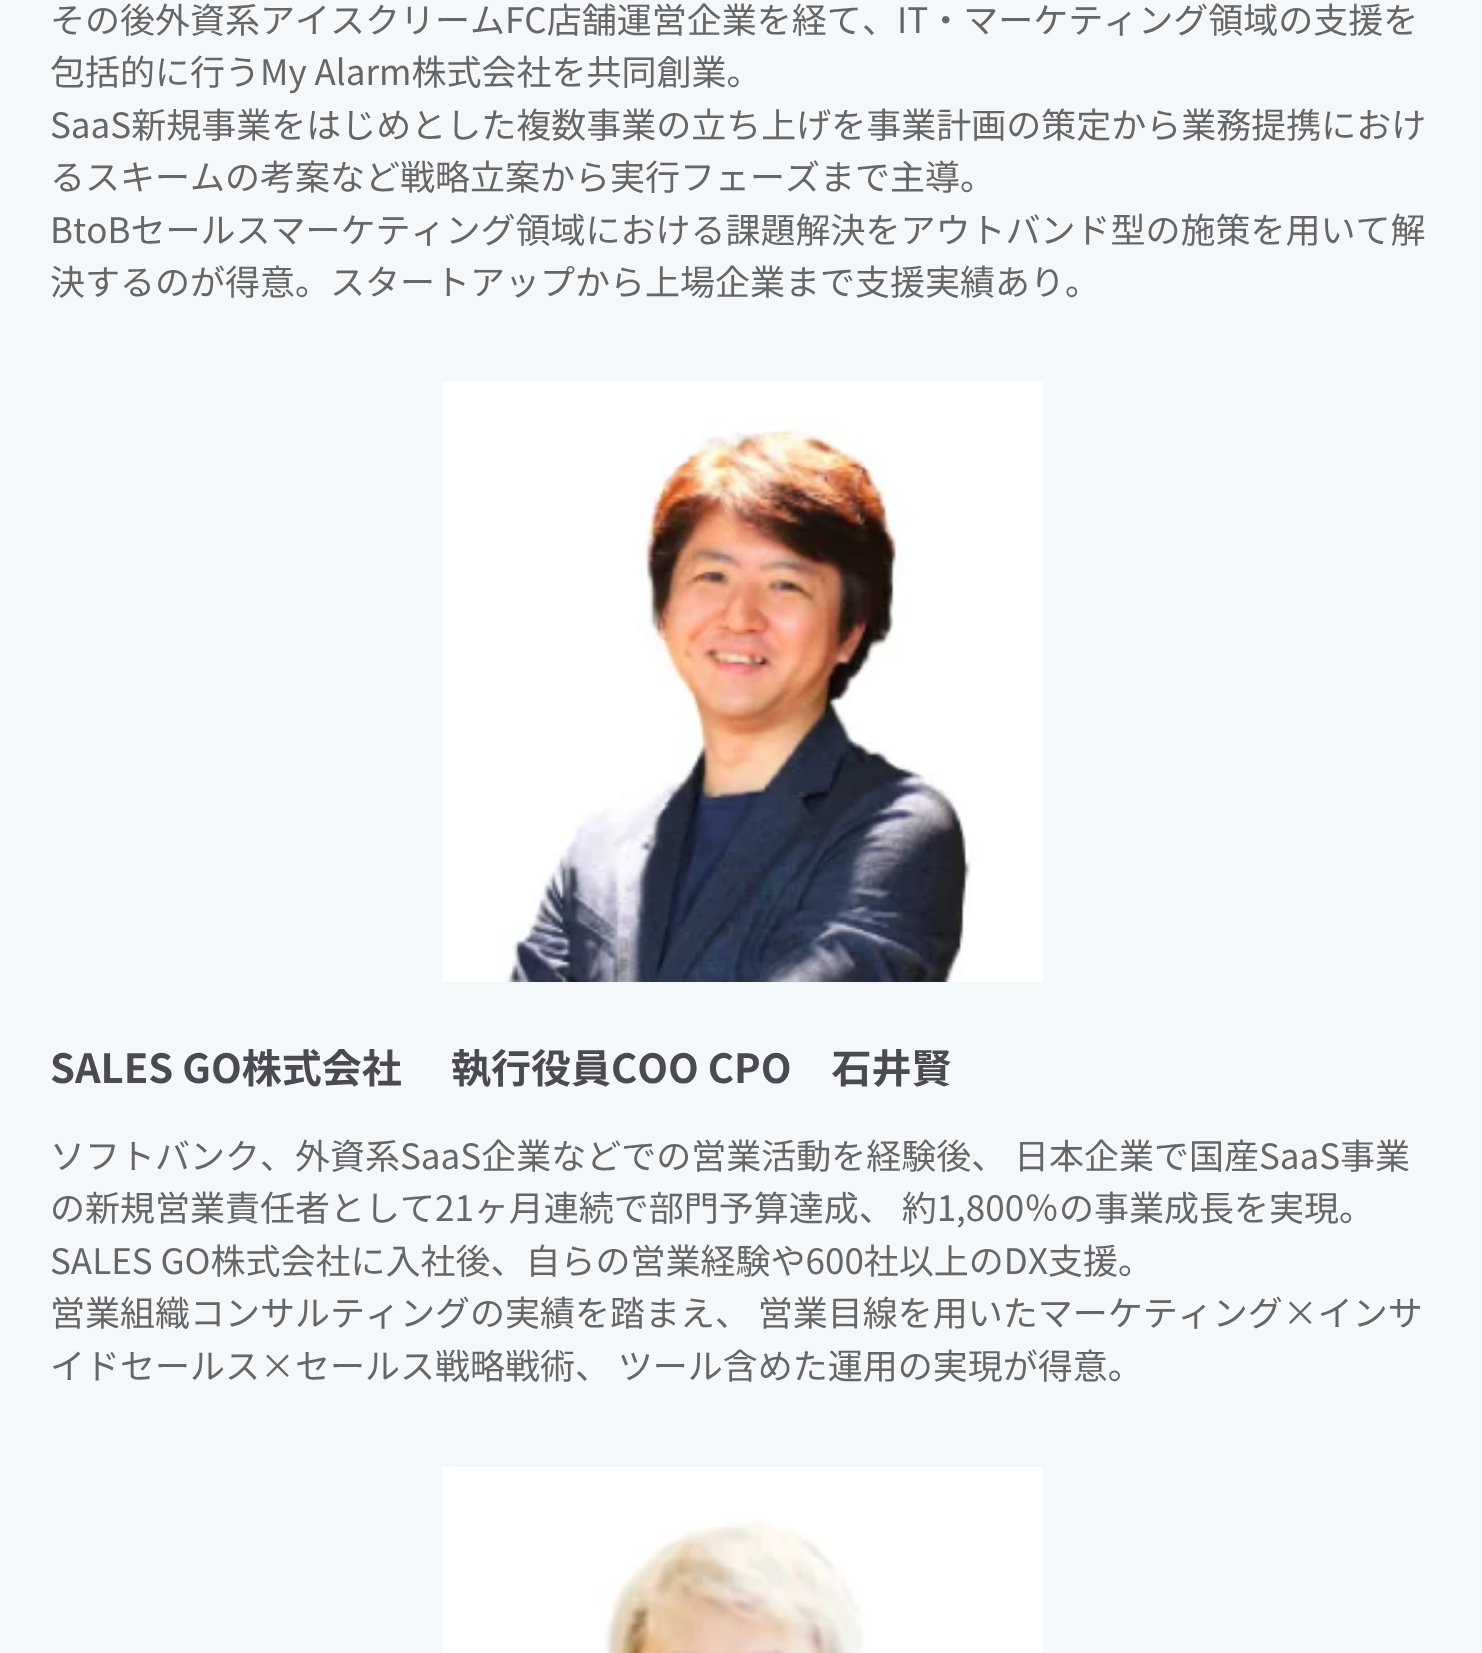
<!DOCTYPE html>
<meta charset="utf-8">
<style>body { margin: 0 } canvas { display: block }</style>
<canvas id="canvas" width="1482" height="1653"></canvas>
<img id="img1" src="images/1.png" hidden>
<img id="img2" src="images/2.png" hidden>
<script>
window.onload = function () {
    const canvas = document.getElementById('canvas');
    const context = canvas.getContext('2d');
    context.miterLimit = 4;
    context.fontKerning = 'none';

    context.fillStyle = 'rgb(245, 248, 251)';
    context.fillRect(0, 0, 1482, 1653);
    context.drawImage(document.getElementById('img1'), 442, 382, 601, 600);
    context.drawImage(document.getElementById('img2'), 442, 1467, 601, 186);
    context.font = '35px Noto Sans JP';
    context.fillStyle = 'rgb(102, 102, 102)';
    context.fillText('その後外資系アイスクリームFC店舗運営企業を経て', 50, 33);
    context.fillText('、IT・マーケティング領域の支援を', 862, 33);
    context.fillText('包括的に行うMy Alarm株式会社を共同創業。', 50, 85);
    context.fillText('SaaS新規事業をはじめとした複数事業の立ち上げを事業計画の策定から業務提携におけ', 50, 138);
    context.fillText('るスキームの考案など戦略立案から実行フェーズまで主導。', 50, 190);
    context.fillText('BtoBセールスマーケティング領域における課題解決をアウトバンド型の施策を用いて解', 50, 243);
    context.fillText('決するのが得意。スタートアップから上場企業まで支援実績あり。', 50, 295);
    context.font = 'bold 40px Noto Sans JP';
    context.fillStyle = 'rgb(73, 74, 82)';
    context.fillText('SALES GO株式会社 　執行役員COO CPO　石井賢', 50, 1083);
    context.font = '35px Noto Sans JP';
    context.fillStyle = 'rgb(102, 102, 102)';
    context.fillText('ソフトバンク、外資系SaaS企業などでの営業活動を経験後、 日本企業で国産SaaS事業', 50, 1169);
    context.fillText('の新規営業責任者として21ヶ月連続で部門予算達成、 約1,800％の事業成長を実現。', 50, 1221);
    context.fillText('SALES GO株式会社に入社後、自らの営業経験や600社以上のDX支援。', 50, 1274);
    context.fillText('営業組織コンサルティングの実績を踏まえ、 営業目線を用いたマーケティング×インサ', 50, 1326);
    context.fillText('イドセールス×セールス戦略戦術、 ツール含めた運用の実現が得意。', 50, 1379);
};
</script>
